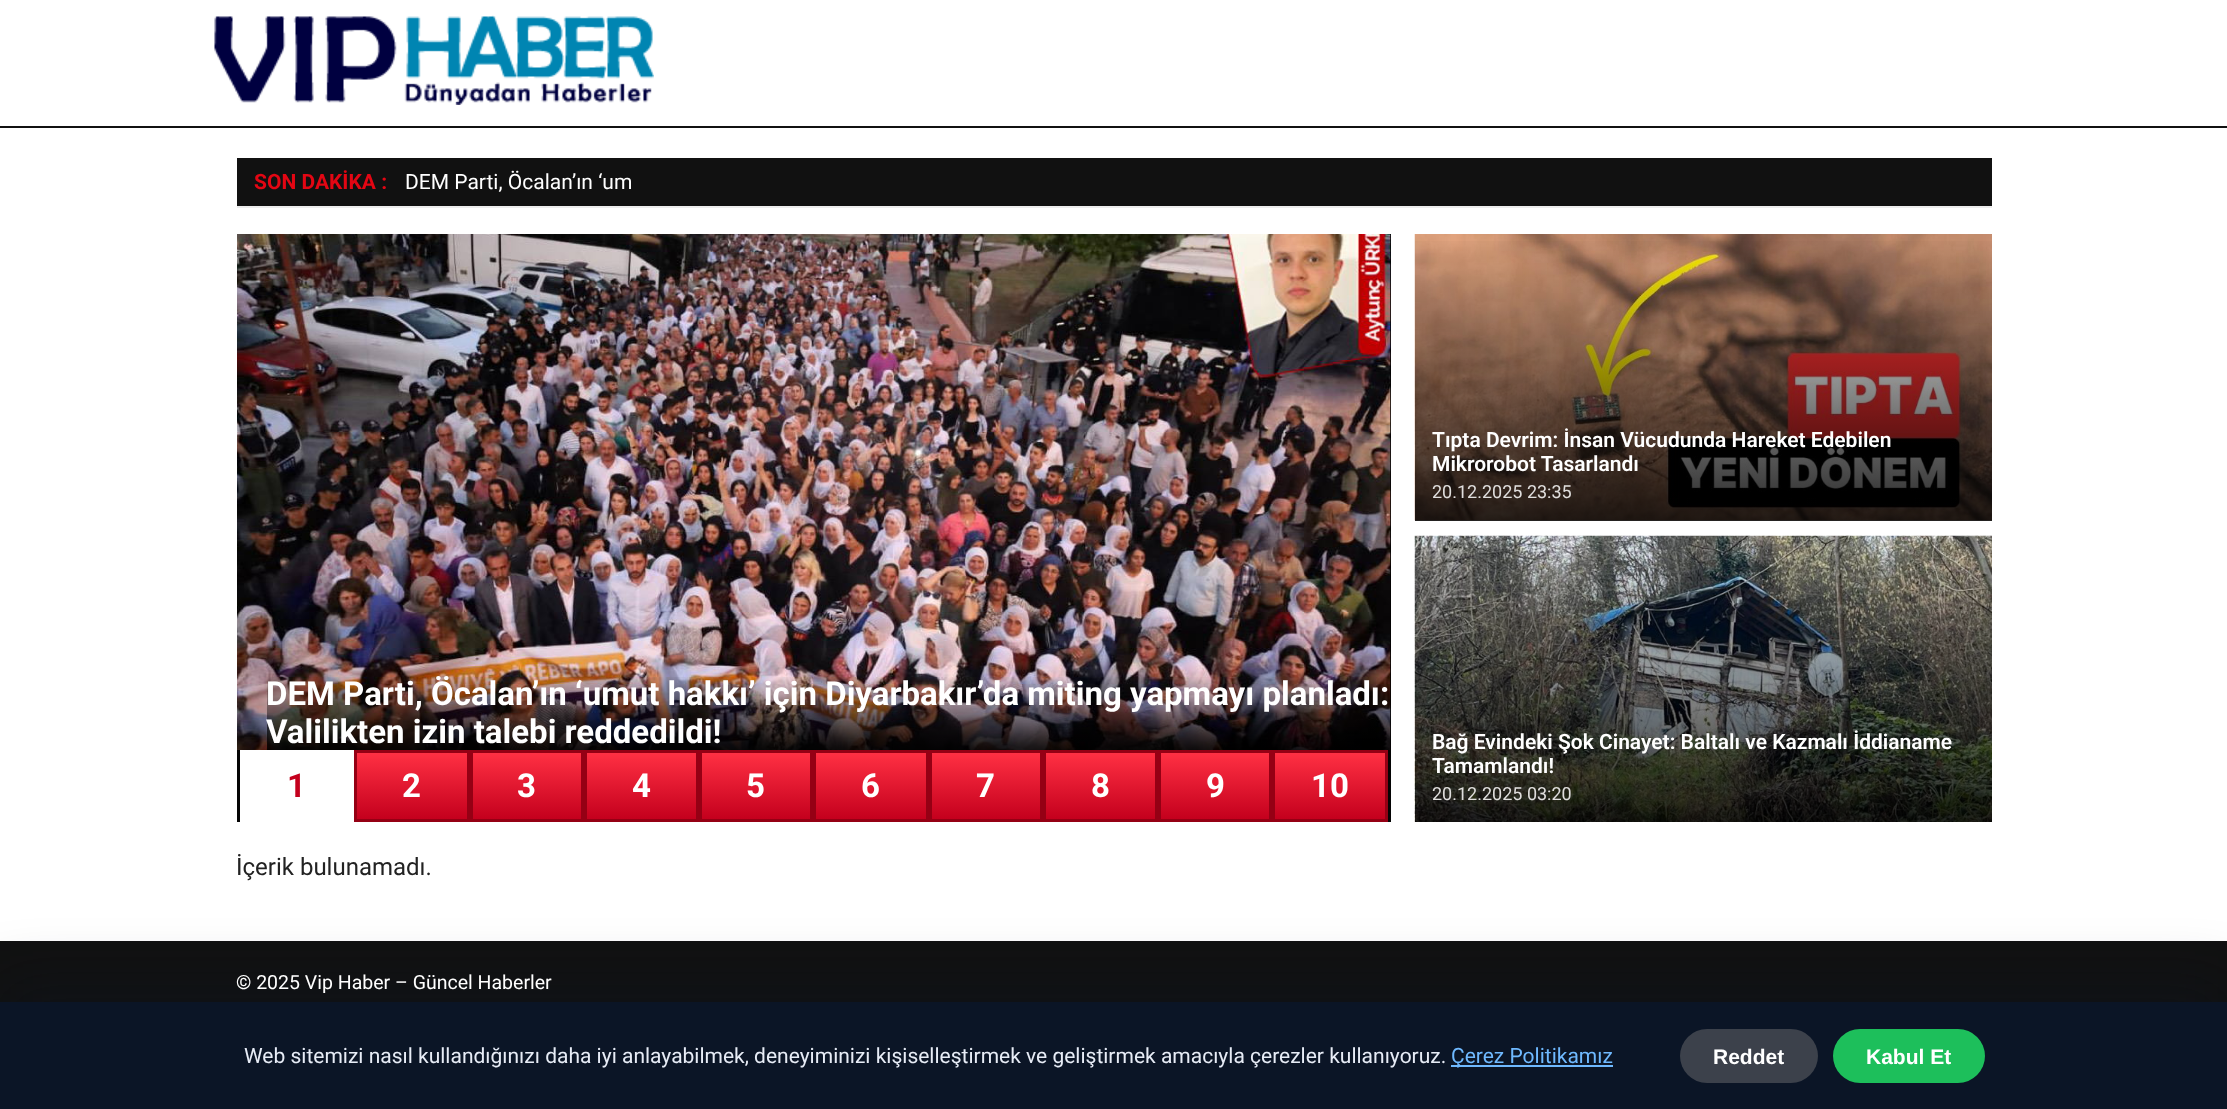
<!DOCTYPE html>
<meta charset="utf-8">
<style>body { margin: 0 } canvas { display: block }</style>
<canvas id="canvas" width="2227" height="1109"></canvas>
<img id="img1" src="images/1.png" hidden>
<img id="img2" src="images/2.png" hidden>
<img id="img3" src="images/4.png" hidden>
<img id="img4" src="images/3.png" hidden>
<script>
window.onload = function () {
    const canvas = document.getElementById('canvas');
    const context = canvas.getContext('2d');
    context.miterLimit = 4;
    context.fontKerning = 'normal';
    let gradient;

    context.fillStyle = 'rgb(255, 255, 255)';
    context.fillRect(0, 0, 2227, 1109);
    context.drawImage(document.getElementById('img1'), 214, 15, 440, 90);
    context.fillStyle = 'rgb(17, 17, 17)';
    context.fillRect(0, 126, 2227, 2);
    context.fillStyle = 'rgb(237, 237, 237)';
    context.fillRect(237, 206, 1755, 2);
    context.fillStyle = 'rgb(17, 17, 17)';
    context.fillRect(237, 158, 1755, 48);
    context.fillStyle = 'rgb(0, 0, 0)';
    context.fillRect(1390, 234, 1, 516);
    context.drawImage(document.getElementById('img2'), 237, 234, 1154, 516);
    gradient = context.createLinearGradient(829, 750, 829, 675);
    gradient.addColorStop(0, 'rgba(0, 0, 0, 0.85)');
    gradient.addColorStop(1, 'rgba(0, 0, 0, 0)');
    context.fillStyle = gradient;
    context.fillRect(267, 677, 1124, 73);
    context.drawImage(document.getElementById('img3'), 1414, 535, 578, 287);
    context.save();
    context.beginPath();
    context.rect(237, 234, 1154, 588);
    context.clip();
    context.fillStyle = 'rgba(0, 0, 0, 0.35)';
    context.filter = 'blur(13.5px)';
    context.beginPath();
    context.rect(237, 741, 1154, 72);
    context.fill();
    context.filter = 'none';
    context.restore();
    context.fillStyle = 'rgb(5, 5, 5)';
    context.fillRect(237, 750, 1154, 72);
    context.fillStyle = 'rgb(255, 255, 255)';
    context.fillRect(240, 750, 114, 72);
    gradient = context.createLinearGradient(412, 753, 412, 819);
    gradient.addColorStop(0, 'rgb(255, 48, 67)');
    gradient.addColorStop(1, 'rgb(196, 0, 29)');
    context.fillStyle = gradient;
    context.fillRect(357, 753, 110, 66);
    context.strokeStyle = 'rgb(149, 0, 20)';
    context.lineWidth = 3;
    context.strokeRect(355.5, 751.5, 113, 69);
    gradient = context.createLinearGradient(527, 753, 527, 819);
    gradient.addColorStop(0, 'rgb(255, 48, 67)');
    gradient.addColorStop(1, 'rgb(196, 0, 29)');
    context.fillStyle = gradient;
    context.fillRect(473, 753, 108, 66);
    context.strokeRect(471.5, 751.5, 111, 69);
    gradient = context.createLinearGradient(641, 753, 641, 819);
    gradient.addColorStop(0, 'rgb(255, 48, 67)');
    gradient.addColorStop(1, 'rgb(196, 0, 29)');
    context.fillStyle = gradient;
    context.fillRect(587, 753, 109, 66);
    context.strokeRect(585.5, 751.5, 112, 69);
    gradient = context.createLinearGradient(756, 753, 756, 819);
    gradient.addColorStop(0, 'rgb(255, 48, 67)');
    gradient.addColorStop(1, 'rgb(196, 0, 29)');
    context.fillStyle = gradient;
    context.fillRect(702, 753, 108, 66);
    context.strokeRect(700.5, 751.5, 111, 69);
    gradient = context.createLinearGradient(871, 753, 871, 819);
    gradient.addColorStop(0, 'rgb(255, 48, 67)');
    gradient.addColorStop(1, 'rgb(196, 0, 29)');
    context.fillStyle = gradient;
    context.fillRect(816, 753, 110, 66);
    context.strokeRect(814.5, 751.5, 113, 69);
    gradient = context.createLinearGradient(986, 753, 986, 819);
    gradient.addColorStop(0, 'rgb(255, 48, 67)');
    gradient.addColorStop(1, 'rgb(196, 0, 29)');
    context.fillStyle = gradient;
    context.fillRect(932, 753, 108, 66);
    context.strokeRect(930.5, 751.5, 111, 69);
    gradient = context.createLinearGradient(1100, 753, 1100, 819);
    gradient.addColorStop(0, 'rgb(255, 48, 67)');
    gradient.addColorStop(1, 'rgb(196, 0, 29)');
    context.fillStyle = gradient;
    context.fillRect(1046, 753, 109, 66);
    context.strokeRect(1044.5, 751.5, 112, 69);
    gradient = context.createLinearGradient(1215, 753, 1215, 819);
    gradient.addColorStop(0, 'rgb(255, 48, 67)');
    gradient.addColorStop(1, 'rgb(196, 0, 29)');
    context.fillStyle = gradient;
    context.fillRect(1161, 753, 108, 66);
    context.strokeRect(1159.5, 751.5, 111, 69);
    gradient = context.createLinearGradient(1330, 753, 1330, 819);
    gradient.addColorStop(0, 'rgb(255, 48, 67)');
    gradient.addColorStop(1, 'rgb(196, 0, 29)');
    context.fillStyle = gradient;
    context.fillRect(1275, 753, 110, 66);
    context.strokeRect(1273.5, 751.5, 113, 69);
    context.drawImage(document.getElementById('img4'), 1414, 234, 578, 287);
    gradient = context.createLinearGradient(1703, 521, 1703, 234);
    gradient.addColorStop(0, 'rgba(0, 0, 0, 0.85)');
    gradient.addColorStop(1, 'rgba(0, 0, 0, 0)');
    context.fillStyle = gradient;
    context.fillRect(1415, 241, 577, 280);
    context.fillStyle = 'rgb(17, 17, 17)';
    context.fillRect(0, 941, 2227, 61);
    context.fillStyle = 'rgba(12, 21, 34, 0.35)';
    context.filter = 'blur(30px)';
    context.beginPath();
    context.rect(0, 984, 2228, 108);
    context.fill();
    context.filter = 'none';
    context.fillStyle = 'rgb(11, 21, 38)';
    context.fillRect(0, 1002, 2227, 107);
    context.fillStyle = 'rgb(111, 185, 255)';
    context.fillRect(1451, 1065, 162, 2);
    context.fillStyle = 'rgb(60, 65, 75)';
    context.beginPath();
    context.roundRect(1680, 1029, 138, 54, 27);
    context.fill();
    context.fillStyle = 'rgb(29, 191, 91)';
    context.beginPath();
    context.roundRect(1833, 1029, 152, 54, 27);
    context.fill();
    context.font = 'bold 21px Roboto';
    context.fillStyle = 'rgb(227, 6, 19)';
    context.fillText('SON DAKİKA :', 254, 189);
    context.font = '21px Roboto';
    context.fillStyle = 'rgb(255, 255, 255)';
    context.fillText('DEM Parti, Öcalan’ın ‘um', 405, 189);
    context.font = 'bold 33px Roboto';
    context.fillText('DEM Parti, Öcalan’ın ‘umut hakkı’ için Diyarbakır’da miting yapmayı planladı:', 266, 705);
    context.fillText('Valilikten izin talebi reddedildi!', 266, 743);
    context.fillStyle = 'rgb(196, 0, 29)';
    context.fillText('1', 287, 797);
    context.fillStyle = 'rgb(255, 255, 255)';
    context.fillText('2', 402, 797);
    context.fillText('3', 517, 797);
    context.fillText('4', 632, 797);
    context.fillText('5', 746, 797);
    context.fillText('6', 861, 797);
    context.fillText('7', 976, 797);
    context.fillText('8', 1091, 797);
    context.fillText('9', 1206, 797);
    context.fillText('10', 1311, 797);
    context.font = '600 21px Roboto';
    context.fillText('Tıpta Devrim: İnsan Vücudunda Hareket Edebilen', 1432, 447);
    context.fillText('Mikrorobot Tasarlandı', 1432, 471);
    context.font = '18px Roboto';
    context.fillStyle = 'rgb(224, 222, 221)';
    context.fillText('20.12.2025 23:35', 1432, 498);
    context.font = '600 21px Roboto';
    context.fillStyle = 'rgb(255, 255, 255)';
    context.fillText('Bağ Evindeki Şok Cinayet: Baltalı ve Kazmalı İddianame', 1432, 749);
    context.fillText('Tamamlandı!', 1432, 773);
    context.font = '18px Roboto';
    context.fillStyle = 'rgb(224, 222, 221)';
    context.fillText('20.12.2025 03:20', 1432, 800);
    context.font = '24px Roboto';
    context.fillStyle = 'rgb(34, 34, 34)';
    context.fillText('İçerik bulunamadı.', 236, 875);
    context.font = '19.5px Roboto';
    context.fillStyle = 'rgb(255, 255, 255)';
    context.fillText('© 2025 Vip Haber – Güncel Haberler', 236, 989);
    context.font = '21px Roboto';
    context.fillStyle = 'rgb(231, 236, 246)';
    context.fillText('Web sitemizi nasıl kullandığınızı daha iyi anlayabilmek, deneyiminizi kişiselleştirmek ve geliştirmek amacıyla çerezler kullanıyoruz.', 244, 1063);
    context.fillStyle = 'rgb(111, 185, 255)';
    context.fillText('Çerez Politikamız', 1451, 1063);
    context.font = 'bold 21px Liberation Sans';
    context.fillStyle = 'rgb(255, 255, 255)';
    context.fillText('Reddet', 1713, 1064);
    context.fillText('Kabul Et', 1866, 1064);
};
</script>
